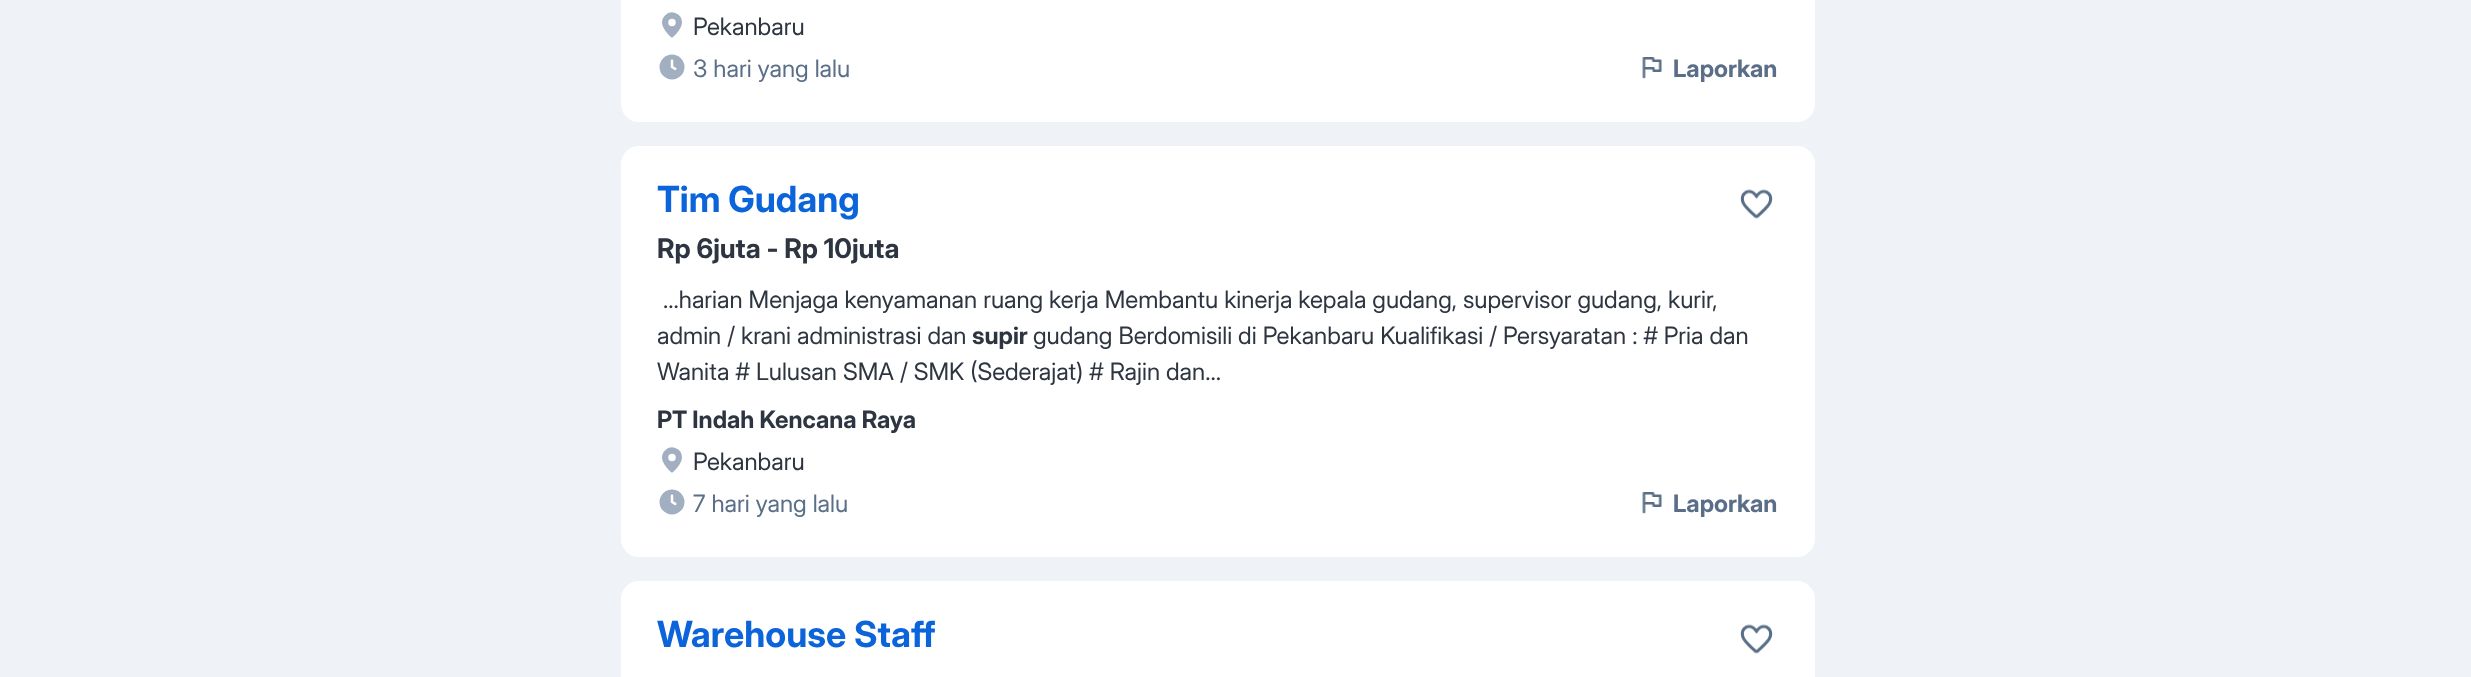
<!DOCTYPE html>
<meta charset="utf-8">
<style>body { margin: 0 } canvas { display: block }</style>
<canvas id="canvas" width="2471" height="677"></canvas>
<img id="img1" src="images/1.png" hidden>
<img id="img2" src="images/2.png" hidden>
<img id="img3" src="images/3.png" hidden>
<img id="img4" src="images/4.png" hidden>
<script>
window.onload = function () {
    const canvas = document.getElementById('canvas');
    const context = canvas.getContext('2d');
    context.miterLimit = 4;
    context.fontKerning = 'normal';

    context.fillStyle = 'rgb(239, 242, 246)';
    context.fillRect(0, 0, 2471, 677);
    context.fillStyle = 'rgb(255, 255, 255)';
    context.beginPath();
    context.roundRect(621, -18, 1194, 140, 18);
    context.fill();
    context.drawImage(document.getElementById('img1'), 662, 12, 20, 26);
    context.drawImage(document.getElementById('img2'), 659, 54, 26, 26);
    context.drawImage(document.getElementById('img3'), 1642, 57, 20, 22);
    context.beginPath();
    context.roundRect(621, 146, 1194, 411, 18);
    context.fill();
    context.drawImage(document.getElementById('img4'), 1740, 189, 33, 30);
    context.drawImage(document.getElementById('img1'), 662, 447, 20, 26);
    context.drawImage(document.getElementById('img2'), 659, 489, 26, 26);
    context.drawImage(document.getElementById('img3'), 1642, 492, 20, 22);
    context.beginPath();
    context.roundRect(621, 581, 1194, 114, 18);
    context.fill();
    context.drawImage(document.getElementById('img4'), 1740, 624, 33, 30);
    context.font = '24px Inter Display';
    context.fillStyle = 'rgb(45, 53, 64)';
    context.fillText('Pekanbaru', 693, 35);
    context.fillStyle = 'rgb(90, 111, 135)';
    context.fillText('3 hari yang lalu', 693, 77);
    context.font = 'bold 24px Inter Display';
    context.fillText('Laporkan', 1673, 77);
    context.font = 'bold 36px Inter Display';
    context.fillStyle = 'rgb(11, 100, 217)';
    context.fillText('Tim Gudang', 657, 212);
    context.font = 'bold 27px Inter Display';
    context.fillStyle = 'rgb(45, 53, 64)';
    context.fillText('Rp 6juta - Rp 10juta', 657, 258);
    context.font = '24px Inter Display';
    context.fillText('...harian Menjaga kenyamanan ruang kerja Membantu kinerja kepala gudang, supervisor gudang, kurir,', 663, 308);
    context.fillText('admin / krani administrasi dan', 657, 344);
    context.font = 'bold 24px Inter Display';
    context.fillText('supir', 972, 344);
    context.font = '24px Inter Display';
    context.fillText('gudang Berdomisili di Pekanbaru Kualifikasi / Persyaratan : # Pria dan', 1033, 344);
    context.fillText('Wanita # Lulusan SMA / SMK (Sederajat) # Rajin dan...', 657, 380);
    context.font = 'bold 24px Inter Display';
    context.fillText('PT Indah Kencana Raya', 657, 428);
    context.font = '24px Inter Display';
    context.fillText('Pekanbaru', 693, 470);
    context.fillStyle = 'rgb(90, 111, 135)';
    context.fillText('7 hari yang lalu', 693, 512);
    context.font = 'bold 24px Inter Display';
    context.fillText('Laporkan', 1673, 512);
    context.font = 'bold 36px Inter Display';
    context.fillStyle = 'rgb(11, 100, 217)';
    context.fillText('Warehouse Staff', 657, 647);
};
</script>
